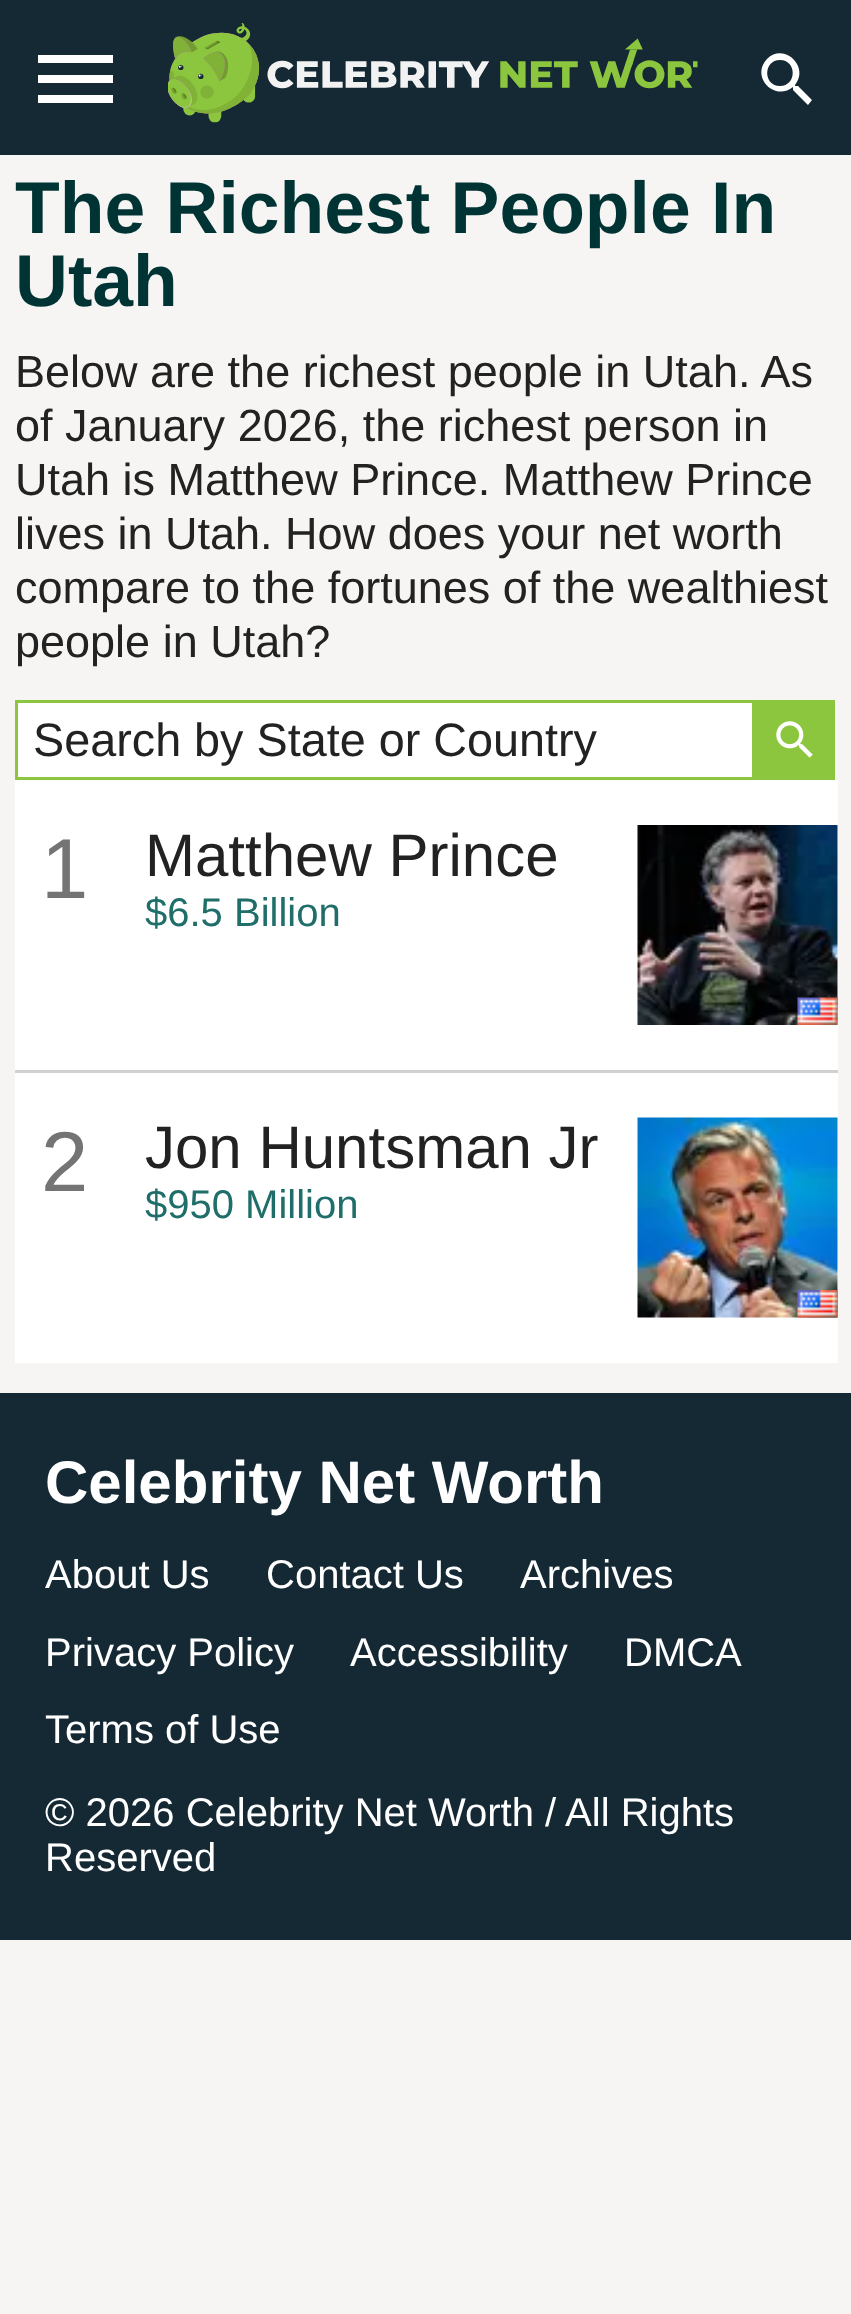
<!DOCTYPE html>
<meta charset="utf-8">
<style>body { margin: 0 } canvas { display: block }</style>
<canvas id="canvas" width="851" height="2314"></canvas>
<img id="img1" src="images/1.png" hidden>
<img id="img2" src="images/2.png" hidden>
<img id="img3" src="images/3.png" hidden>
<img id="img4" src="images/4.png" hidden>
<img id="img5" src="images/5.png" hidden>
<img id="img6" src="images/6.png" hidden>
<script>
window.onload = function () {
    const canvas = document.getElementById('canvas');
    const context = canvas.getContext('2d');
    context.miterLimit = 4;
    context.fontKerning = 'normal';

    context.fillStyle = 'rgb(246, 245, 243)';
    context.fillRect(0, 0, 851, 2314);
    context.fillStyle = 'rgb(21, 41, 52)';
    context.fillRect(0, 0, 851, 155);
    context.drawImage(document.getElementById('img1'), 168, 23, 530, 100);
    context.fillStyle = 'rgb(255, 255, 255)';
    context.beginPath();
    context.moveTo(798, 86);
    context.lineTo(795, 86);
    context.lineTo(795, 85);
    context.bezierCurveTo(810, 67, 784, 42, 767, 59);
    context.bezierCurveTo(750, 77, 775, 102, 793, 87);
    context.lineTo(793, 88);
    context.lineTo(793, 90);
    context.lineTo(808, 105);
    context.lineTo(812, 100);
    context.closePath();
    context.moveTo(780, 86);
    context.bezierCurveTo(763, 86, 763, 60, 780, 60);
    context.bezierCurveTo(797, 60, 797, 86, 780, 86);
    context.closePath();
    context.fill();
    context.fillRect(38, 55, 75, 8);
    context.fillRect(38, 75, 75, 8);
    context.fillRect(38, 95, 75, 8);
    context.beginPath();
    context.rect(16.5, 701.5, 737, 77);
    context.fill();
    context.strokeStyle = 'rgb(140, 198, 63)';
    context.lineWidth = 3;
    context.stroke();
    context.fillStyle = 'rgb(140, 198, 63)';
    context.fillRect(755, 700, 80, 80);
    context.drawImage(document.getElementById('img2'), 776, 721, 37, 37);
    context.fillStyle = 'rgb(255, 255, 255)';
    context.fillRect(15, 780, 823, 583);
    context.drawImage(document.getElementById('img3'), 637, 825, 201, 200);
    context.drawImage(document.getElementById('img4'), 797, 997, 41, 28);
    context.fillStyle = 'rgb(209, 209, 209)';
    context.fillRect(15, 1070, 823, 3);
    context.drawImage(document.getElementById('img5'), 637, 1117, 201, 201);
    context.drawImage(document.getElementById('img6'), 797, 1290, 41, 28);
    context.fillStyle = 'rgb(21, 41, 52)';
    context.fillRect(0, 1393, 851, 547);
    context.font = 'bold 73.25px Liberation Sans';
    context.fillStyle = 'rgb(0, 51, 51)';
    context.fillText('The Richest People In', 15, 233);
    context.fillText('Utah', 15, 306);
    context.font = '45px Liberation Sans';
    context.fillStyle = 'rgb(34, 34, 34)';
    context.fillText('Below are the richest people in Utah. As', 15, 387);
    context.fillText('of January 2026, the richest person in', 15, 441);
    context.fillText('Utah is Matthew Prince. Matthew Prince', 15, 495);
    context.fillText('lives in Utah. How does your net worth', 15, 549);
    context.fillText('compare to the fortunes of the wealthiest', 15, 603);
    context.fillText('people in Utah?', 15, 657);
    context.font = '46.75px Liberation Sans';
    context.fillText('Search by State or Country', 33, 756);
    context.font = '85px Liberation Sans';
    context.fillStyle = 'rgb(116, 116, 116)';
    context.fillText('1', 41, 898);
    context.font = '60px Liberation Sans';
    context.fillStyle = 'rgb(34, 34, 34)';
    context.fillText('Matthew Prince', 145, 876);
    context.font = '40px Liberation Sans';
    context.fillStyle = 'rgb(31, 110, 106)';
    context.fillText('$6.5 Billion', 145, 926);
    context.font = '85px Liberation Sans';
    context.fillStyle = 'rgb(116, 116, 116)';
    context.fillText('2', 41, 1191);
    context.font = '60px Liberation Sans';
    context.fillStyle = 'rgb(34, 34, 34)';
    context.fillText('Jon Huntsman Jr', 145, 1168);
    context.font = '40px Liberation Sans';
    context.fillStyle = 'rgb(31, 110, 106)';
    context.fillText('$950 Million', 145, 1218);
    context.font = 'bold 60px Liberation Sans';
    context.fillStyle = 'rgb(255, 255, 255)';
    context.fillText('Celebrity Net Worth', 45, 1503);
    context.font = '40px Liberation Sans';
    context.fillText('About Us', 45, 1588);
    context.fillText('Contact Us', 266, 1588);
    context.fillText('Archives', 520, 1588);
    context.fillText('Privacy Policy', 45, 1666);
    context.fillText('Accessibility', 350, 1666);
    context.fillText('DMCA', 624, 1666);
    context.fillText('Terms of Use', 45, 1743);
    context.fillText('© 2026 Celebrity Net Worth / All Rights', 45, 1826);
    context.fillText('Reserved', 45, 1871);
};
</script>
